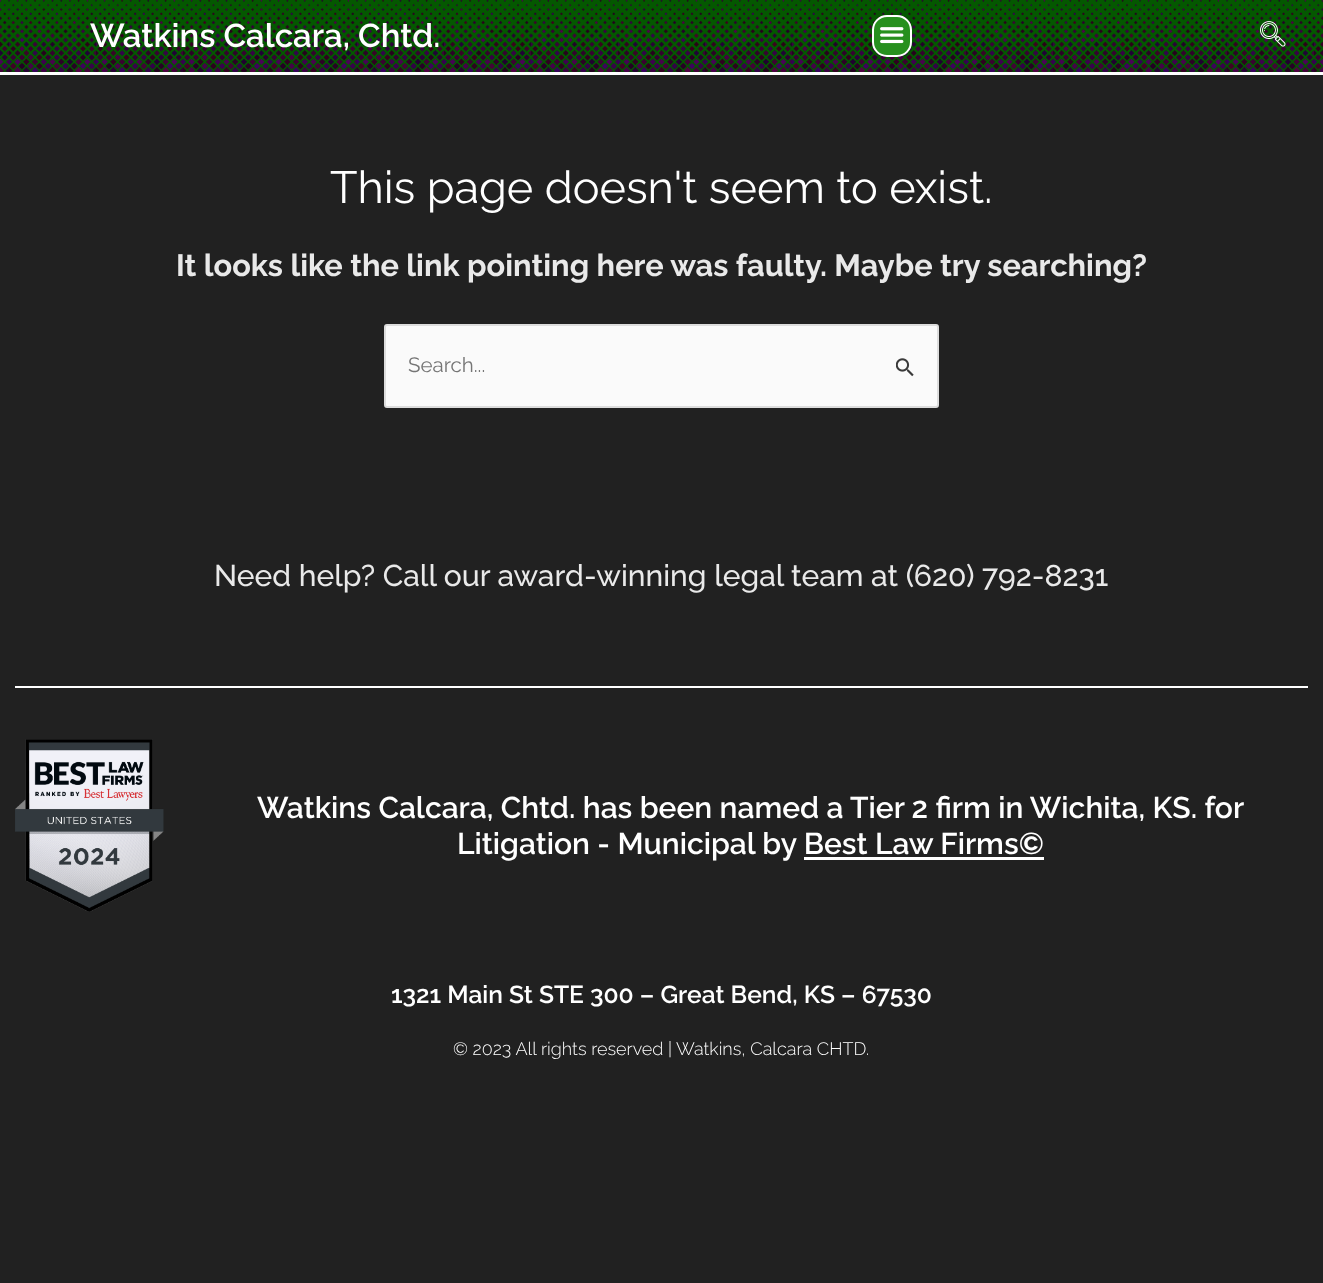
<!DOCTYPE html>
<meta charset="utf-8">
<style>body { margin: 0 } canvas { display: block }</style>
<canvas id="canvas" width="1323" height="1283"></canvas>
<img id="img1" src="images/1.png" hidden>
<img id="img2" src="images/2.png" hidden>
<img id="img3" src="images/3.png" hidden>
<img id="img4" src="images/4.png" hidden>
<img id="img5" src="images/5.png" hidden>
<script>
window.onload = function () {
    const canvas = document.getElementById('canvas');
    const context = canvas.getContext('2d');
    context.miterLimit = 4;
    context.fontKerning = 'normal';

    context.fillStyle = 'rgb(33, 33, 33)';
    context.fillRect(0, 0, 1323, 1283);
    context.fillStyle = 'rgb(4, 88, 0)';
    context.fillRect(0, 0, 1323, 72);
    context.drawImage(document.getElementById('img1'), 0, 0, 1323, 72);
    context.fillStyle = 'rgb(255, 255, 255)';
    context.fillRect(0, 72, 1323, 3);
    context.fillStyle = 'rgb(39, 144, 30)';
    context.beginPath();
    context.roundRect(873, 16, 38, 40, 14);
    context.fill();
    context.strokeStyle = 'rgb(255, 255, 255)';
    context.lineWidth = 2;
    context.stroke();
    context.drawImage(document.getElementById('img2'), 880, 27, 24, 17);
    context.drawImage(document.getElementById('img3'), 1260, 21, 26, 26);
    context.fillStyle = 'rgb(250, 250, 250)';
    context.beginPath();
    context.roundRect(385, 325, 553, 82, 2);
    context.fill();
    context.strokeStyle = 'rgb(221, 221, 221)';
    context.stroke();
    context.drawImage(document.getElementById('img4'), 896, 358, 18, 19);
    context.fillStyle = 'rgb(255, 255, 255)';
    context.fillRect(15, 686, 1293, 2);
    context.drawImage(document.getElementById('img5'), 15, 739, 149, 173);
    context.fillRect(804, 857, 240, 3);
    context.font = '600 33px Raleway';
    context.fillText('Watkins Calcara, Chtd.', 90, 47);
    context.font = '45px Raleway';
    context.fillText('This page doesn\'t seem to exist.', 330, 203);
    context.font = 'bold 30.75px Raleway';
    context.fillStyle = 'rgb(233, 233, 233)';
    context.fillText('It looks like the link pointing here was faulty. Maybe try searching?', 176, 276);
    context.font = '20.5px Raleway';
    context.fillStyle = 'rgb(117, 117, 117)';
    context.fillText('Search...', 408, 372);
    context.font = '500 30px Raleway';
    context.fillStyle = 'rgb(233, 233, 233)';
    context.fillText('Need help? Call our award-winning legal team at (620) 792-8231', 214, 586);
    context.font = '600 30px Raleway';
    context.fillStyle = 'rgb(255, 255, 255)';
    context.fillText('Watkins Calcara, Chtd. has been named a Tier 2 firm in Wichita, KS. for', 257, 818);
    context.fillText('Litigation - Municipal by Best Law Firms©', 457, 854);
    context.font = '600 24.6px Raleway';
    context.fillText('1321 Main St STE 300 – Great Bend, KS – 67530', 391, 1003);
    context.font = '300 18px Raleway';
    context.fillText('© 2023 All rights reserved | Watkins, Calcara CHTD.', 453, 1055);
};
</script>
